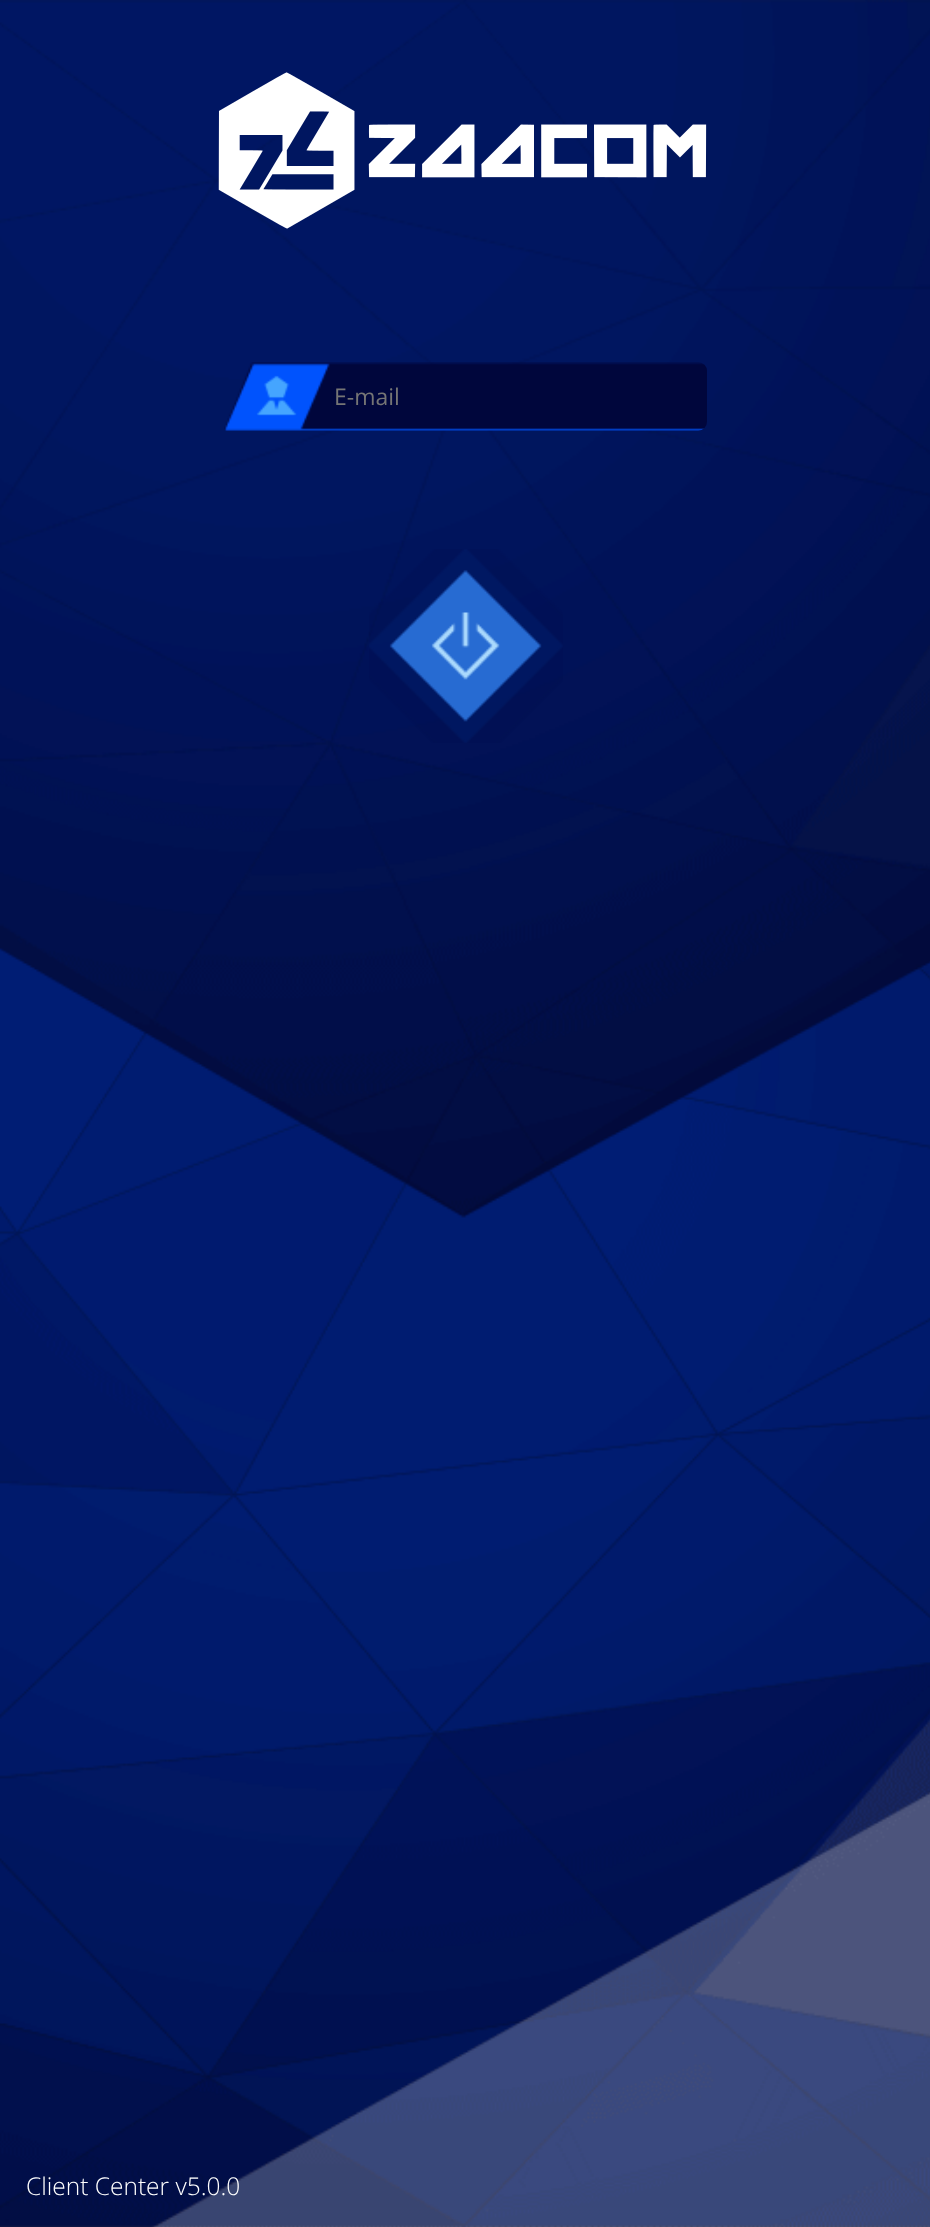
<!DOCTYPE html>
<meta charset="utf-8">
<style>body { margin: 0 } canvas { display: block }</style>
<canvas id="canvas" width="930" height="2227"></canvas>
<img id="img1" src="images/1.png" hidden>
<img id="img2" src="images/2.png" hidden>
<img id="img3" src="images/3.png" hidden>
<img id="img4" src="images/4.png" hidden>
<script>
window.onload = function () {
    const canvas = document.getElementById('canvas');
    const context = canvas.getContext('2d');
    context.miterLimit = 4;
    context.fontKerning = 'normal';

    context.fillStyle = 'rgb(255, 255, 255)';
    context.fillRect(0, 0, 930, 2227);
    context.drawImage(document.getElementById('img1'), 0, 0, 930, 2227);
    context.drawImage(document.getElementById('img2'), 218, 72, 489, 157);
    context.drawImage(document.getElementById('img3'), 224, 362, 483, 69);
    context.drawImage(document.getElementById('img4'), 369, 549, 194, 194);
    context.font = '23px Open Sans';
    context.fillStyle = 'rgb(117, 117, 117)';
    context.fillText('E-mail', 334, 405);
    context.font = '300 24.5px Open Sans';
    context.fillStyle = 'rgb(255, 255, 255)';
    context.fillText('Client Center v5.0.0', 26, 2195);
};
</script>
